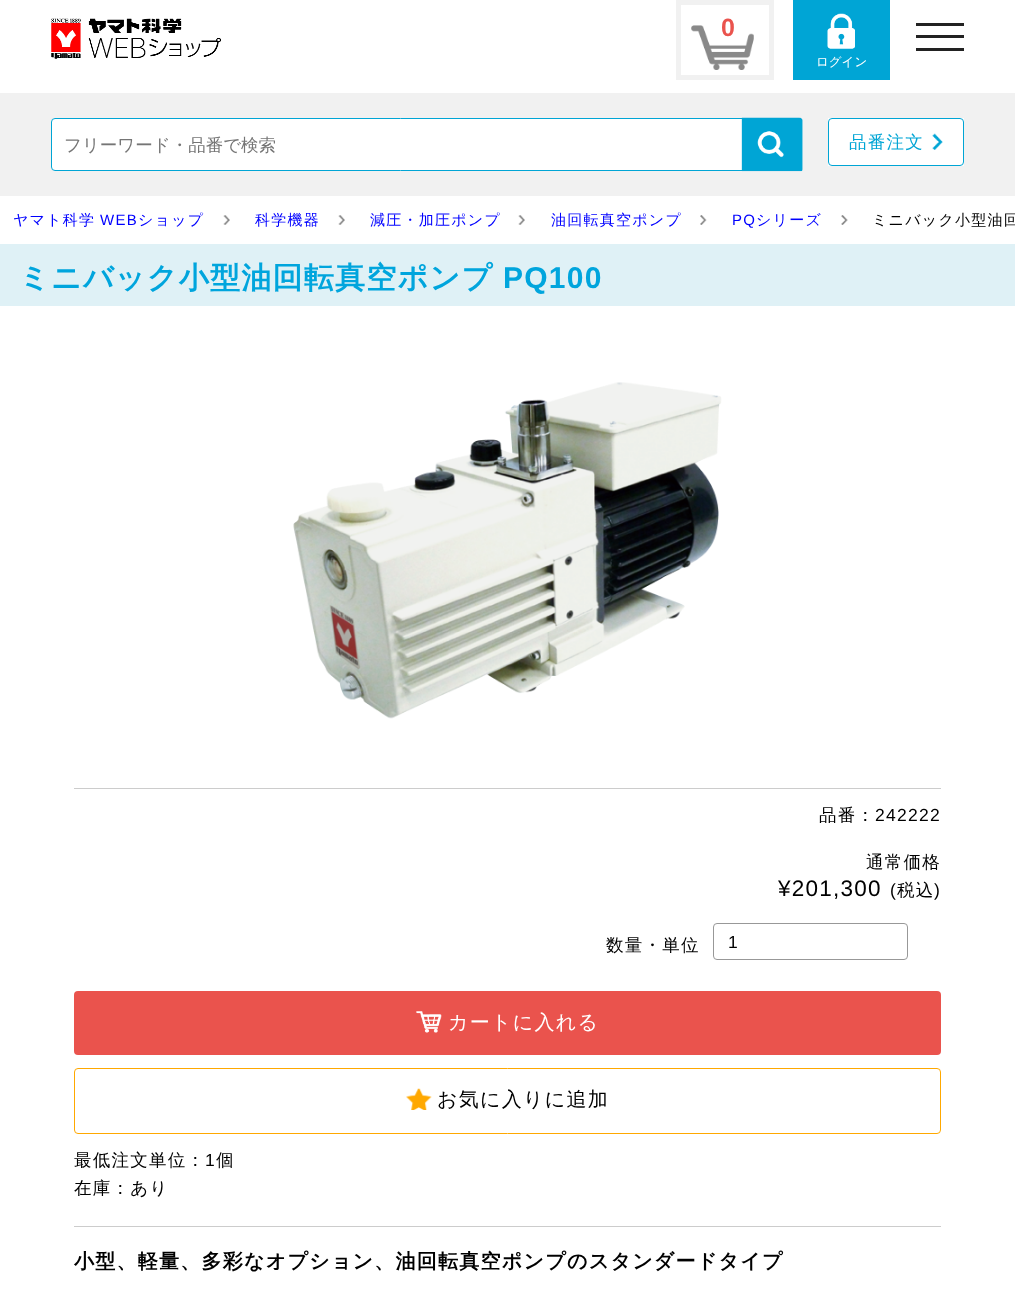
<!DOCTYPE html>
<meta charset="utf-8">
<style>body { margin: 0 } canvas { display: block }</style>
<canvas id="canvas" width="1015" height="1303"></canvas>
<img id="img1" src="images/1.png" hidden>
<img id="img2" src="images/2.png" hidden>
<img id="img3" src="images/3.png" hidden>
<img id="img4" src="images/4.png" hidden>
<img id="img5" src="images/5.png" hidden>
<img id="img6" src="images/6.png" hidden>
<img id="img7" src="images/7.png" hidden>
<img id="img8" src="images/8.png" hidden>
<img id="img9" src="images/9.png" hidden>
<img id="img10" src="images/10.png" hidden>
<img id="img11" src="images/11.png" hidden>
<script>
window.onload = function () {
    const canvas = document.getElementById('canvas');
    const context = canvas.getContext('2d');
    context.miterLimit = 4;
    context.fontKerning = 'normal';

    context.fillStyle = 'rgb(255, 255, 255)';
    context.fillRect(0, 0, 1015, 1303);
    context.drawImage(document.getElementById('img1'), 51, 18, 170, 41);
    context.drawImage(document.getElementById('img2'), 691, 25, 63, 45);
    context.strokeStyle = 'rgb(241, 241, 241)';
    context.lineWidth = 5;
    context.strokeRect(678.5, 2.5, 93, 75);
    context.fillStyle = 'rgb(34, 34, 34)';
    context.fillRect(916, 35, 48, 3);
    context.fillRect(916, 23, 48, 3);
    context.fillRect(916, 48, 48, 3);
    context.fillStyle = 'rgb(0, 165, 213)';
    context.fillRect(793, 0, 97, 80);
    context.drawImage(document.getElementById('img3'), 827, 13, 28, 36);
    context.fillStyle = 'rgb(241, 241, 241)';
    context.fillRect(0, 93, 1015, 103);
    context.fillStyle = 'rgb(255, 255, 255)';
    context.beginPath();
    context.roundRect(51.5, 118.5, 698, 52, 3.5);
    context.fill();
    context.strokeStyle = 'rgb(0, 165, 213)';
    context.lineWidth = 1;
    context.stroke();
    context.drawImage(document.getElementById('img4'), 741, 117, 62, 55);
    context.fillRect(828, 118, 136, 48);
    context.beginPath();
    context.roundRect(828.5, 118.5, 135, 47, 3.5);
    context.stroke();
    context.drawImage(document.getElementById('img5'), 932, 133, 11, 17);
    context.drawImage(document.getElementById('img6'), 223, 215, 7, 10);
    context.drawImage(document.getElementById('img6'), 338, 215, 7, 10);
    context.drawImage(document.getElementById('img6'), 518, 215, 7, 10);
    context.drawImage(document.getElementById('img7'), 700, 215, 7, 10);
    context.drawImage(document.getElementById('img8'), 841, 215, 7, 10);
    context.fillStyle = 'rgb(223, 241, 246)';
    context.fillRect(0, 244, 1015, 62);
    context.drawImage(document.getElementById('img9'), 293, 382, 429, 337);
    context.fillStyle = 'rgb(204, 204, 204)';
    context.fillRect(74, 788, 867, 1);
    context.fillRect(74, 1226, 867, 1);
    context.beginPath();
    context.roundRect(713.5, 923.5, 194, 36, 3.5);
    context.strokeStyle = 'rgb(152, 152, 152)';
    context.stroke();
    context.fillStyle = 'rgb(234, 83, 77)';
    context.beginPath();
    context.roundRect(74, 991, 867, 64, 4);
    context.fill();
    context.drawImage(document.getElementById('img10'), 416, 1011, 26, 22);
    context.beginPath();
    context.roundRect(74.5, 1068.5, 866, 65, 3.5);
    context.strokeStyle = 'rgb(255, 168, 0)';
    context.stroke();
    context.drawImage(document.getElementById('img11'), 406, 1088, 26, 22);
    context.font = 'bold 25px Liberation Sans';
    context.fillText('0', 721, 36);
    context.font = '500 12.5px WenQuanYi Zen Hei';
    context.fillStyle = 'rgb(255, 255, 255)';
    context.fillText('ログイン', 816, 66);
    context.font = '500 17.5px WenQuanYi Zen Hei';
    context.fillStyle = 'rgb(117, 117, 117)';
    context.fillText('フリーワード・品番で検索', 64, 151);
    context.letterSpacing = '1.25px';
    context.fillStyle = 'rgb(0, 165, 213)';
    context.fillText('品番注文', 849, 148);
    context.font = '500 15px WenQuanYi Zen Hei';
    context.fillStyle = 'rgb(0, 0, 255)';
    context.fillText('ヤマト科学', 13, 225);
    context.font = '15px Liberation Sans';
    context.fillText('WEB', 100, 225);
    context.font = '500 15px WenQuanYi Zen Hei';
    context.fillText('ショップ', 138, 225);
    context.fillText('科学機器', 255, 225);
    context.fillText('減圧・加圧ポンプ', 370, 225);
    context.fillText('油回転真空ポンプ', 551, 225);
    context.font = '15px Liberation Sans';
    context.fillText('PQ', 732, 225);
    context.font = '500 15px WenQuanYi Zen Hei';
    context.fillText('シリーズ', 756, 225);
    context.fillStyle = 'rgb(0, 0, 0)';
    context.fillText('ミニバック小型油回', 872, 225);
    context.font = 'bold 30px WenQuanYi Zen Hei';
    context.fillStyle = 'rgb(0, 165, 221)';
    context.fillText('ミニバック小型油回転真空ポンプ', 19, 288);
    context.font = 'bold 30px Liberation Sans';
    context.fillText('PQ100', 503, 288);
    context.font = '500 17.5px WenQuanYi Zen Hei';
    context.fillStyle = 'rgb(0, 0, 0)';
    context.fillText('品番：', 819, 821);
    context.font = '17.5px Liberation Sans';
    context.fillText('242222', 875, 821);
    context.font = '500 17.5px WenQuanYi Zen Hei';
    context.fillText('通常価格', 866, 868);
    context.font = '22.5px Liberation Sans';
    context.fillText('¥201,300', 778, 896);
    context.font = '17.5px Liberation Sans';
    context.fillText('(', 890, 896);
    context.font = '500 17.5px WenQuanYi Zen Hei';
    context.fillText('税込', 897, 896);
    context.font = '17.5px Liberation Sans';
    context.fillText(')', 934, 896);
    context.font = '500 17.5px WenQuanYi Zen Hei';
    context.fillText('数量・単位', 606, 951);
    context.letterSpacing = '0px';
    context.font = '17.5px Liberation Sans';
    context.fillText('1', 728, 948);
    context.letterSpacing = '1.25px';
    context.font = '500 20px WenQuanYi Zen Hei';
    context.fillStyle = 'rgb(255, 255, 255)';
    context.fillText('カートに入れる', 448, 1029);
    context.fillStyle = 'rgb(0, 0, 0)';
    context.fillText('お気に入りに追加', 437, 1106);
    context.font = '500 17.5px WenQuanYi Zen Hei';
    context.fillText('最低注文単位：', 74, 1166);
    context.font = '17.5px Liberation Sans';
    context.fillText('1', 205, 1166);
    context.font = '500 17.5px WenQuanYi Zen Hei';
    context.fillText('個', 216, 1166);
    context.fillText('在庫：あり', 74, 1194);
    context.font = 'bold 20px WenQuanYi Zen Hei';
    context.fillText('小型、軽量、多彩なオプション、油回転真空ポンプのスタンダードタイプ', 74, 1268);
};
</script>
